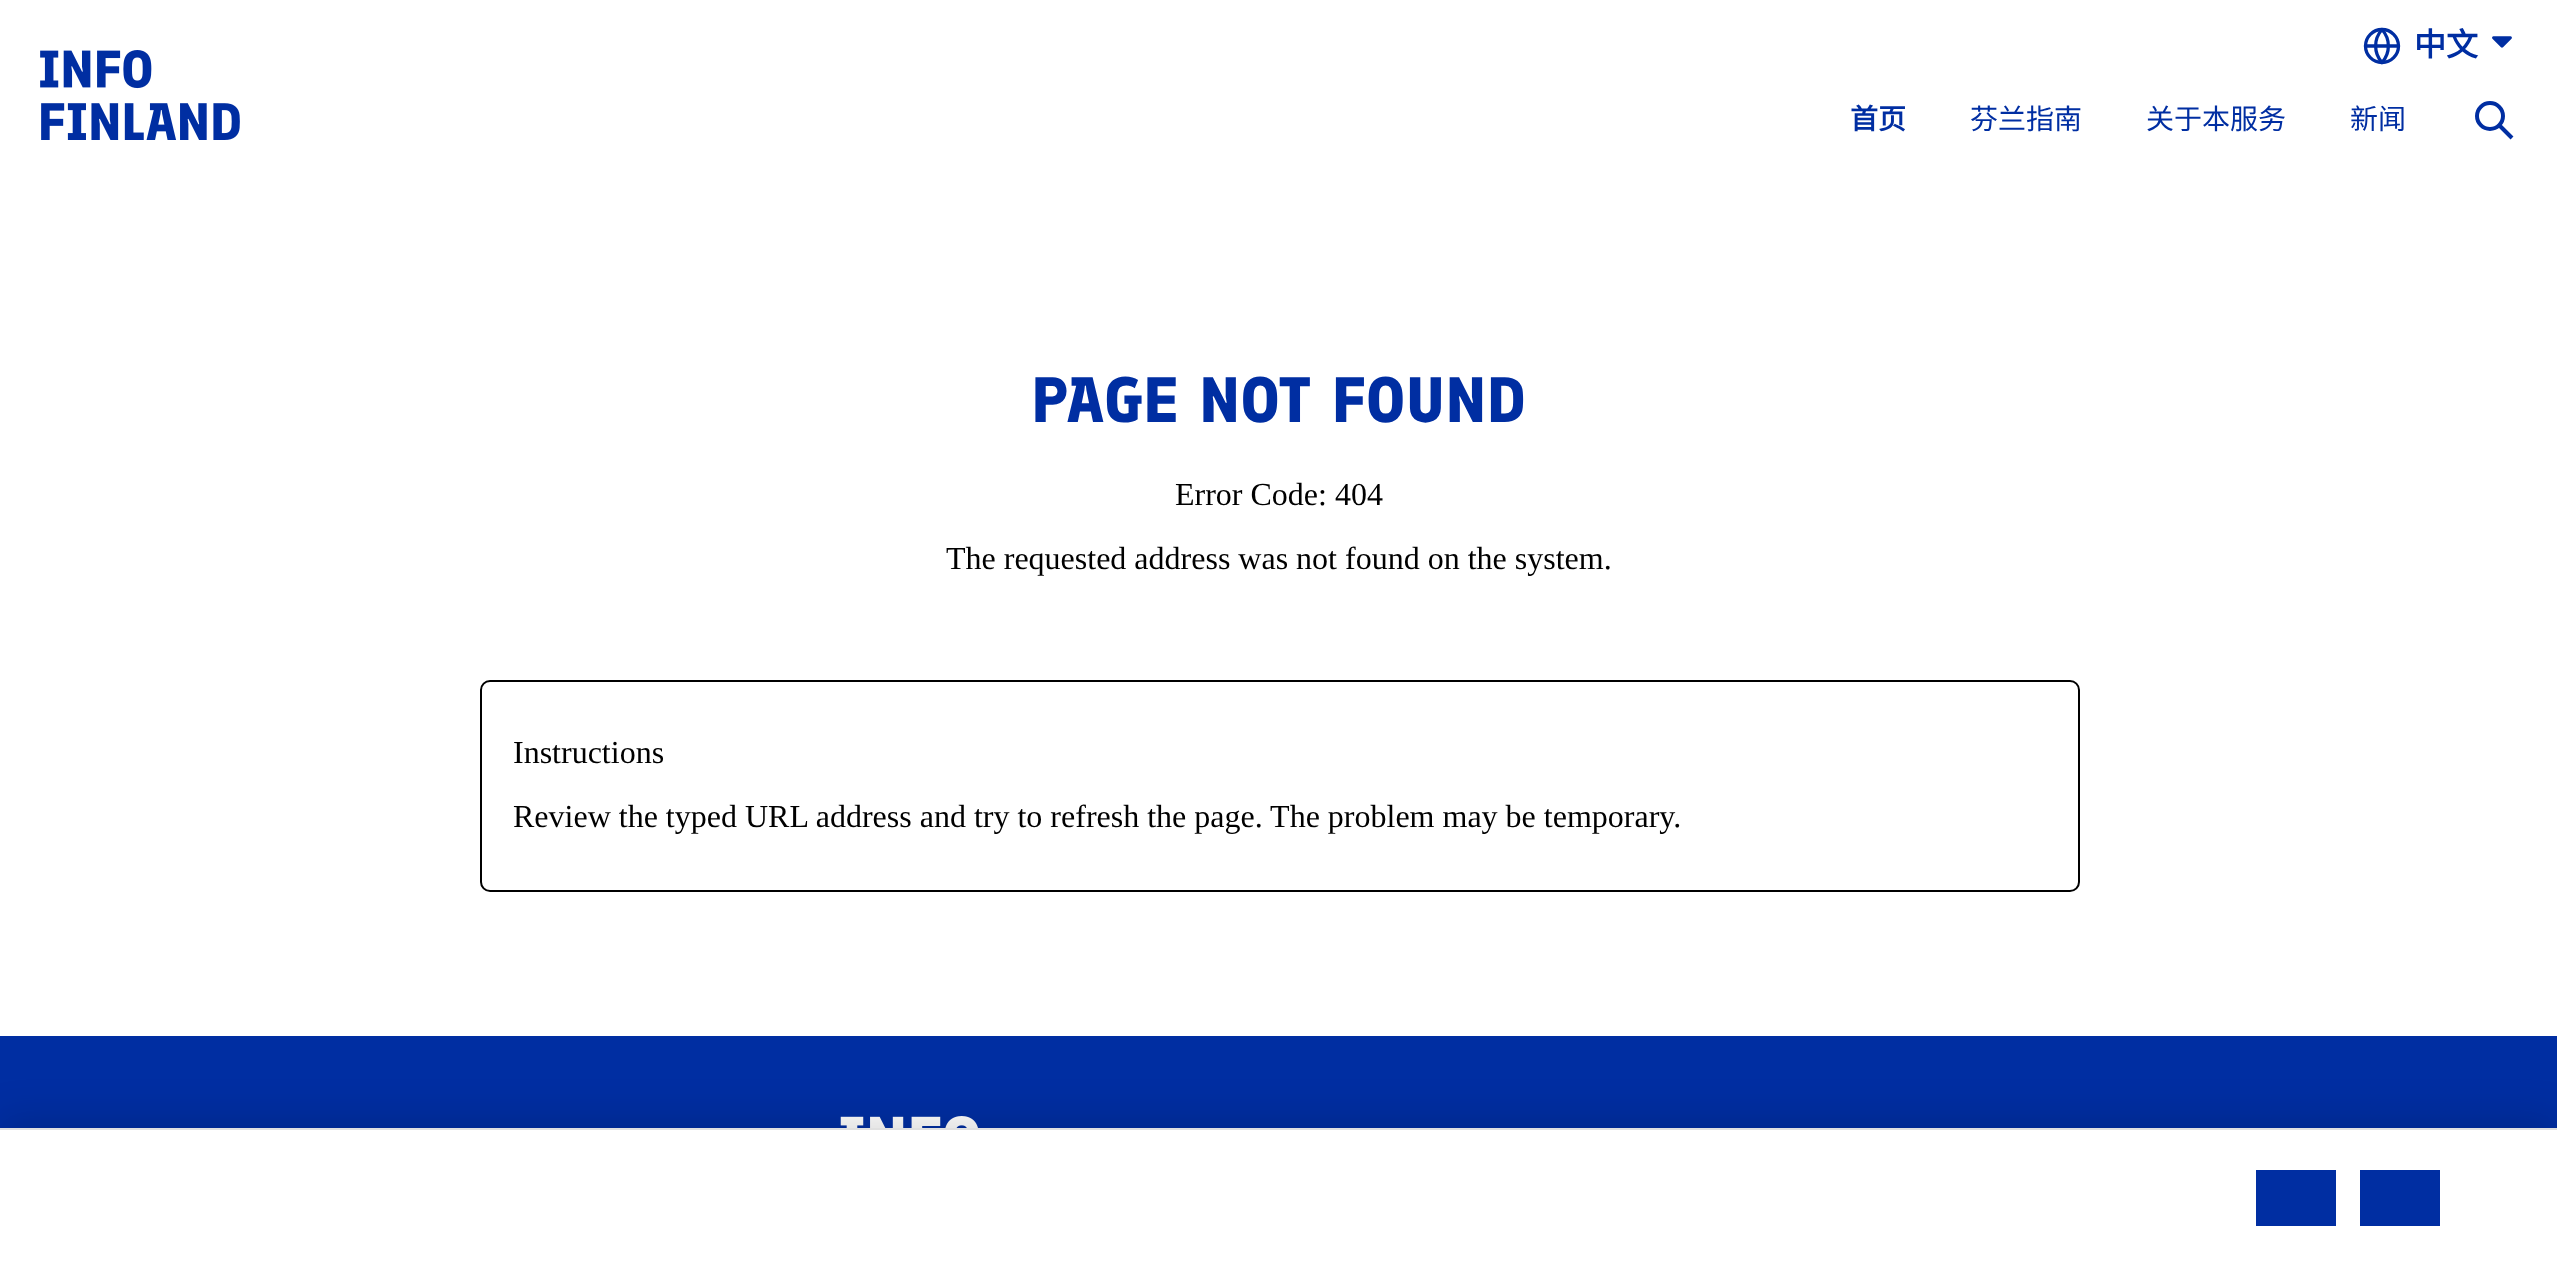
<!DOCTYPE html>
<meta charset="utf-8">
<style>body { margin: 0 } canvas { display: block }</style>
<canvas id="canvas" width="2557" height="1265"></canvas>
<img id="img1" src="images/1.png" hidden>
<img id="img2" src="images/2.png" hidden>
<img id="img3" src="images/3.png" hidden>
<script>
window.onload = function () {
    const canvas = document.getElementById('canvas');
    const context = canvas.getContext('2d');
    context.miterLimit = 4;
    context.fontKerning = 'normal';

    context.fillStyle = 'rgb(255, 255, 255)';
    context.fillRect(0, 0, 2557, 1265);
    context.drawImage(document.getElementById('img1'), 40, 50, 200, 90);
    context.beginPath();
    context.arc(2382, 46, 16.5, 0, 2 * Math.PI);
    context.strokeStyle = 'rgb(0, 46, 162)';
    context.lineWidth = 3.3;
    context.stroke();
    context.beginPath();
    context.moveTo(2365.5, 46);
    context.lineTo(2398.5, 46);
    context.moveTo(2382, 29.5);
    context.bezierCurveTo(2390.5, 39, 2390.5, 53, 2382, 62.5);
    context.bezierCurveTo(2373.5, 53, 2373.5, 39, 2382, 29.5);
    context.closePath();
    context.lineCap = 'round';
    context.lineJoin = 'round';
    context.stroke();
    context.drawImage(document.getElementById('img2'), 2492, 36, 20, 12);
    context.beginPath();
    context.arc(2490, 116, 13, 0, 2 * Math.PI);
    context.lineWidth = 4;
    context.stroke();
    context.beginPath();
    context.moveTo(2512, 138);
    context.lineTo(2500, 126);
    context.lineCap = 'butt';
    context.lineJoin = 'miter';
    context.stroke();
    context.beginPath();
    context.roundRect(481, 681, 1598, 210, 9);
    context.strokeStyle = 'rgb(0, 0, 0)';
    context.lineWidth = 2;
    context.stroke();
    context.fillStyle = 'rgb(0, 46, 162)';
    context.fillRect(0, 1036, 2557, 92);
    context.drawImage(document.getElementById('img3'), 840, 1116, 138, 12);
    context.fillStyle = 'rgba(0, 0, 0, 0.15)';
    context.filter = 'blur(20px)';
    context.beginPath();
    context.rect(0, 1120, 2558, 138);
    context.fill();
    context.filter = 'none';
    context.fillStyle = 'rgb(255, 255, 255)';
    context.fillRect(0, 1130, 2557, 135);
    context.fillStyle = 'rgb(224, 224, 224)';
    context.fillRect(0, 1128, 2557, 2);
    context.fillStyle = 'rgb(0, 46, 162)';
    context.fillRect(2256, 1170, 80, 56);
    context.fillRect(2360, 1170, 80, 56);
    context.font = 'bold 32px Noto Sans CJK SC';
    context.fillText('中文', 2414, 56);
    context.font = 'bold 28px Noto Sans CJK SC';
    context.fillText('首页', 1850, 129);
    context.font = '28px Noto Sans CJK SC';
    context.fillText('芬兰指南', 1970, 129);
    context.fillText('关于本服务', 2146, 129);
    context.fillText('新闻', 2350, 129);
    context.font = 'bold 64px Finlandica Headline';
    context.fillText('PAGE NOT FOUND', 1031, 422);
    context.font = '32px Liberation Serif';
    context.fillStyle = 'rgb(0, 0, 0)';
    context.fillText('Error Code: 404', 1175, 505);
    context.fillText('The requested address was not found on the system.', 946, 569);
    context.fillText('Instructions', 513, 763);
    context.fillText('Review the typed URL address and try to refresh the page. The problem may be temporary.', 513, 827);
};
</script>
